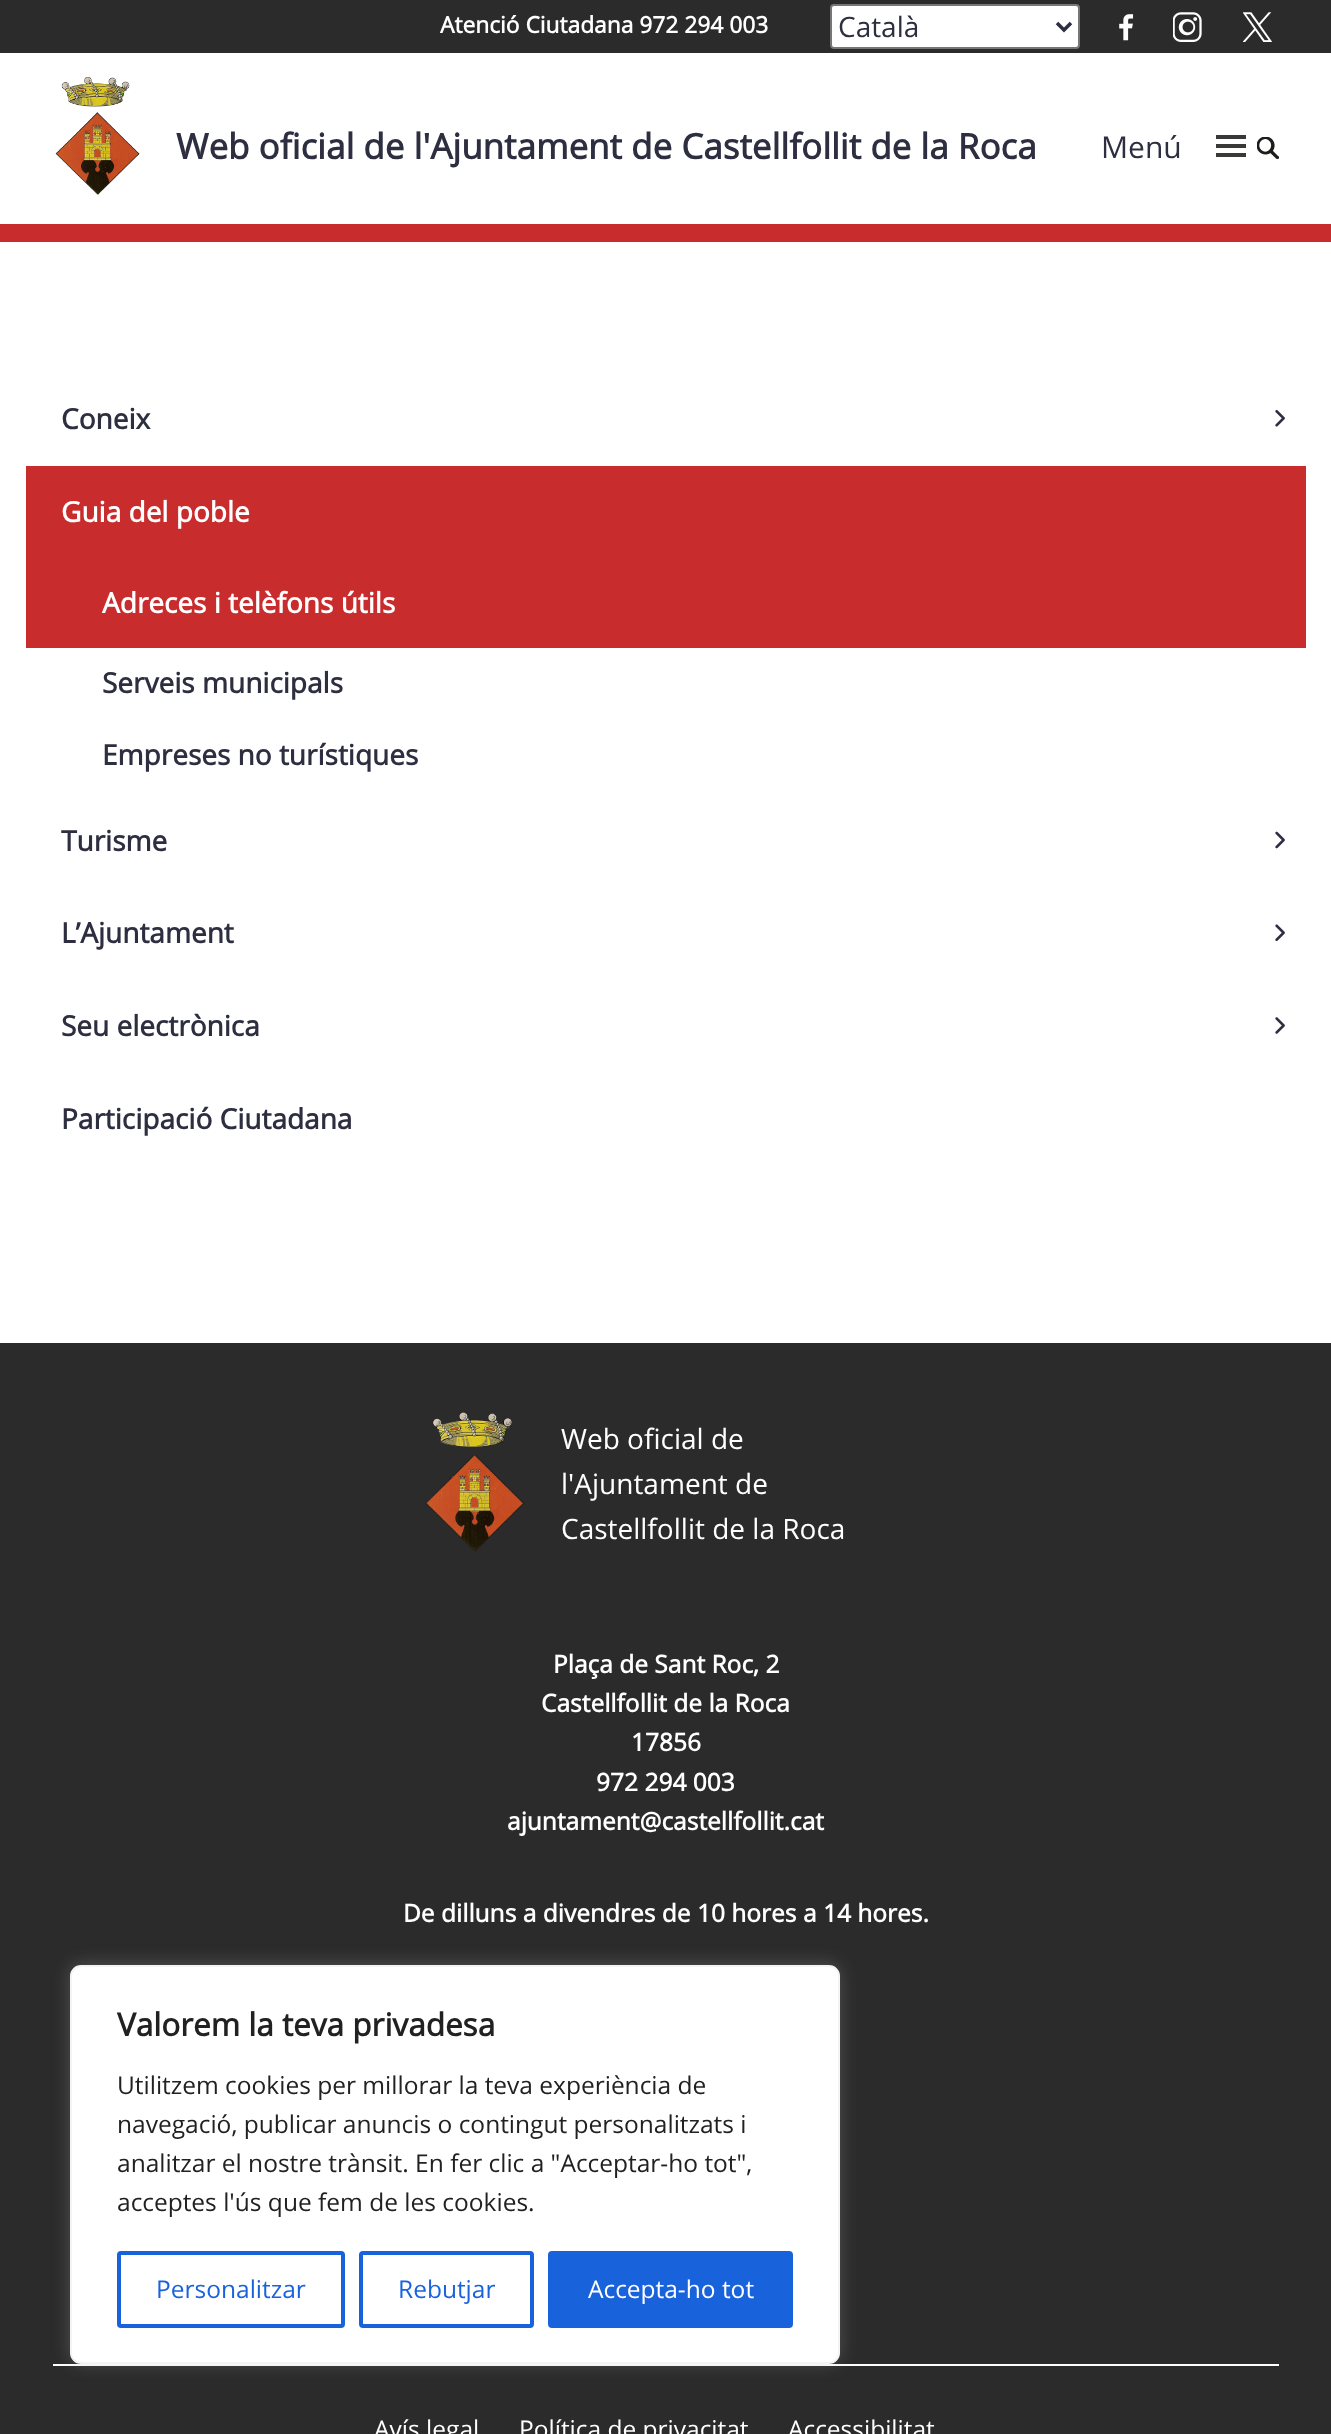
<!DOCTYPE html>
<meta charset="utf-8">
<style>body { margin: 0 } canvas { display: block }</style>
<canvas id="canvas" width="1331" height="2434"></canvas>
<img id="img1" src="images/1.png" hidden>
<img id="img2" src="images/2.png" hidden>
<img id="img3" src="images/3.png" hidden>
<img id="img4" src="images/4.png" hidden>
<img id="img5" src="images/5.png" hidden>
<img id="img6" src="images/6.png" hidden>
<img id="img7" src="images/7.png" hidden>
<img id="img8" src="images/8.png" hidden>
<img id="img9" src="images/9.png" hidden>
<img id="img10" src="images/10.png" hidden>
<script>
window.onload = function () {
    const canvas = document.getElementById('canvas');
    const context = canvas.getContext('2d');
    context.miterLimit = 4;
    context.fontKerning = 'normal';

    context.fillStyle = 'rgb(255, 255, 255)';
    context.fillRect(0, 0, 1331, 2434);
    context.fillStyle = 'rgb(201, 44, 44)';
    context.fillRect(0, 224, 1331, 18);
    context.fillStyle = 'rgb(43, 43, 43)';
    context.fillRect(0, 0, 1331, 53);
    context.fillStyle = 'rgb(255, 255, 255)';
    context.beginPath();
    context.roundRect(831, 5, 248, 43, 3);
    context.fill();
    context.strokeStyle = 'rgb(118, 118, 118)';
    context.lineWidth = 2;
    context.stroke();
    context.beginPath();
    context.moveTo(1057, 23);
    context.lineTo(1064, 30);
    context.lineTo(1071, 23);
    context.strokeStyle = 'rgb(45, 46, 64)';
    context.lineWidth = 3.5;
    context.stroke();
    context.drawImage(document.getElementById('img1'), 1119, 14, 15, 27);
    context.drawImage(document.getElementById('img2'), 1173, 12, 29, 30);
    context.drawImage(document.getElementById('img3'), 1243, 12, 29, 30);
    context.drawImage(document.getElementById('img4'), 55, 77, 85, 118);
    context.fillStyle = 'rgb(57, 57, 56)';
    context.fillRect(1216, 135, 30, 4);
    context.fillRect(1216, 144, 30, 4);
    context.fillRect(1216, 153, 30, 4);
    context.drawImage(document.getElementById('img5'), 1257, 137, 22, 22);
    context.drawImage(document.getElementById('img6'), 1275, 410, 10, 17);
    context.fillStyle = 'rgb(201, 44, 44)';
    context.fillRect(26, 466, 1280, 182);
    context.drawImage(document.getElementById('img7'), 1275, 831, 10, 18);
    context.drawImage(document.getElementById('img8'), 1275, 924, 10, 17);
    context.drawImage(document.getElementById('img9'), 1275, 1017, 10, 17);
    context.fillStyle = 'rgb(43, 43, 43)';
    context.fillRect(0, 1343, 1331, 1091);
    context.drawImage(document.getElementById('img10'), 425, 1412, 99, 140);
    context.fillStyle = 'rgb(255, 255, 255)';
    context.fillRect(53, 2364, 1226, 2);
    context.fillStyle = 'rgba(172, 171, 171, 0.3)';
    context.filter = 'blur(9px)';
    context.beginPath();
    context.roundRect(70, 1964, 770, 399, 11);
    context.fill();
    context.filter = 'none';
    context.fillStyle = 'rgb(255, 255, 255)';
    context.beginPath();
    context.roundRect(71, 1966, 768, 397, 10);
    context.fill();
    context.strokeStyle = 'rgb(244, 244, 244)';
    context.lineWidth = 2;
    context.stroke();
    context.beginPath();
    context.roundRect(119, 2253, 224, 73, 2);
    context.strokeStyle = 'rgb(24, 99, 220)';
    context.lineWidth = 4;
    context.stroke();
    context.beginPath();
    context.roundRect(361, 2253, 171, 73, 2);
    context.stroke();
    context.fillStyle = 'rgb(24, 99, 220)';
    context.beginPath();
    context.roundRect(550, 2253, 241, 73, 2);
    context.fill();
    context.stroke();
    context.font = 'bold 22.75px Open Sans';
    context.fillStyle = 'rgb(255, 255, 255)';
    context.fillText('Atenció Ciutadana 972 294 003', 440, 33);
    context.font = '28px Open Sans';
    context.fillStyle = 'rgb(45, 46, 64)';
    context.fillText('Català', 838, 37);
    context.font = 'bold 35px Open Sans';
    context.fillText('Web oficial de l\'Ajuntament de Castellfollit de la Roca', 176, 159);
    context.font = '30px Open Sans';
    context.fillText('Menú', 1101, 158);
    context.font = 'bold 28px Open Sans';
    context.fillText('Coneix', 61, 429);
    context.fillStyle = 'rgb(255, 255, 255)';
    context.fillText('Guia del poble', 61, 522);
    context.fillText('Adreces i telèfons útils', 102, 613);
    context.fillStyle = 'rgb(45, 46, 64)';
    context.fillText('Serveis municipals', 102, 693);
    context.fillText('Empreses no turístiques', 102, 765);
    context.fillText('Turisme', 61, 851);
    context.fillText('L’Ajuntament', 61, 943);
    context.fillText('Seu electrònica', 61, 1036);
    context.fillText('Participació Ciutadana', 61, 1129);
    context.font = '28px Open Sans';
    context.fillStyle = 'rgb(255, 255, 255)';
    context.fillText('Web oficial de', 561, 1449);
    context.fillText('l\'Ajuntament de', 561, 1494);
    context.fillText('Castellfollit de la Roca', 561, 1539);
    context.font = 'bold 24.5px Open Sans';
    context.fillText('Plaça de Sant Roc, 2', 553, 1673);
    context.fillText('Castellfollit de la Roca', 541, 1712);
    context.fillText('17856', 631, 1751);
    context.fillText('972 294 003', 596, 1791);
    context.fillText('ajuntament@castellfollit.cat', 507, 1830);
    context.fillText('De dilluns a divendres de 10 hores a 14 hores.', 403, 1922);
    context.font = '24.5px Open Sans';
    context.fillText('Avís legal', 374, 2438);
    context.fillText('Política de privacitat', 519, 2438);
    context.fillText('Accessibilitat', 788, 2438);
    context.font = 'bold 31.5px Open Sans';
    context.fillStyle = 'rgb(33, 33, 33)';
    context.fillText('Valorem la teva privadesa', 117, 2036);
    context.font = '24.5px Open Sans';
    context.fillText('Utilitzem cookies per millorar la teva experiència de', 117, 2094);
    context.fillText('navegació, publicar anuncis o contingut personalitzats i', 117, 2133);
    context.fillText('analitzar el nostre trànsit. En fer clic a "Acceptar-ho tot",', 117, 2172);
    context.fillText('acceptes l\'ús que fem de les cookies.', 117, 2211);
    context.fillStyle = 'rgb(24, 99, 220)';
    context.fillText('Personalitzar', 156, 2298);
    context.fillText('Rebutjar', 398, 2298);
    context.fillStyle = 'rgb(255, 255, 255)';
    context.fillText('Accepta-ho tot', 588, 2298);
};
</script>
